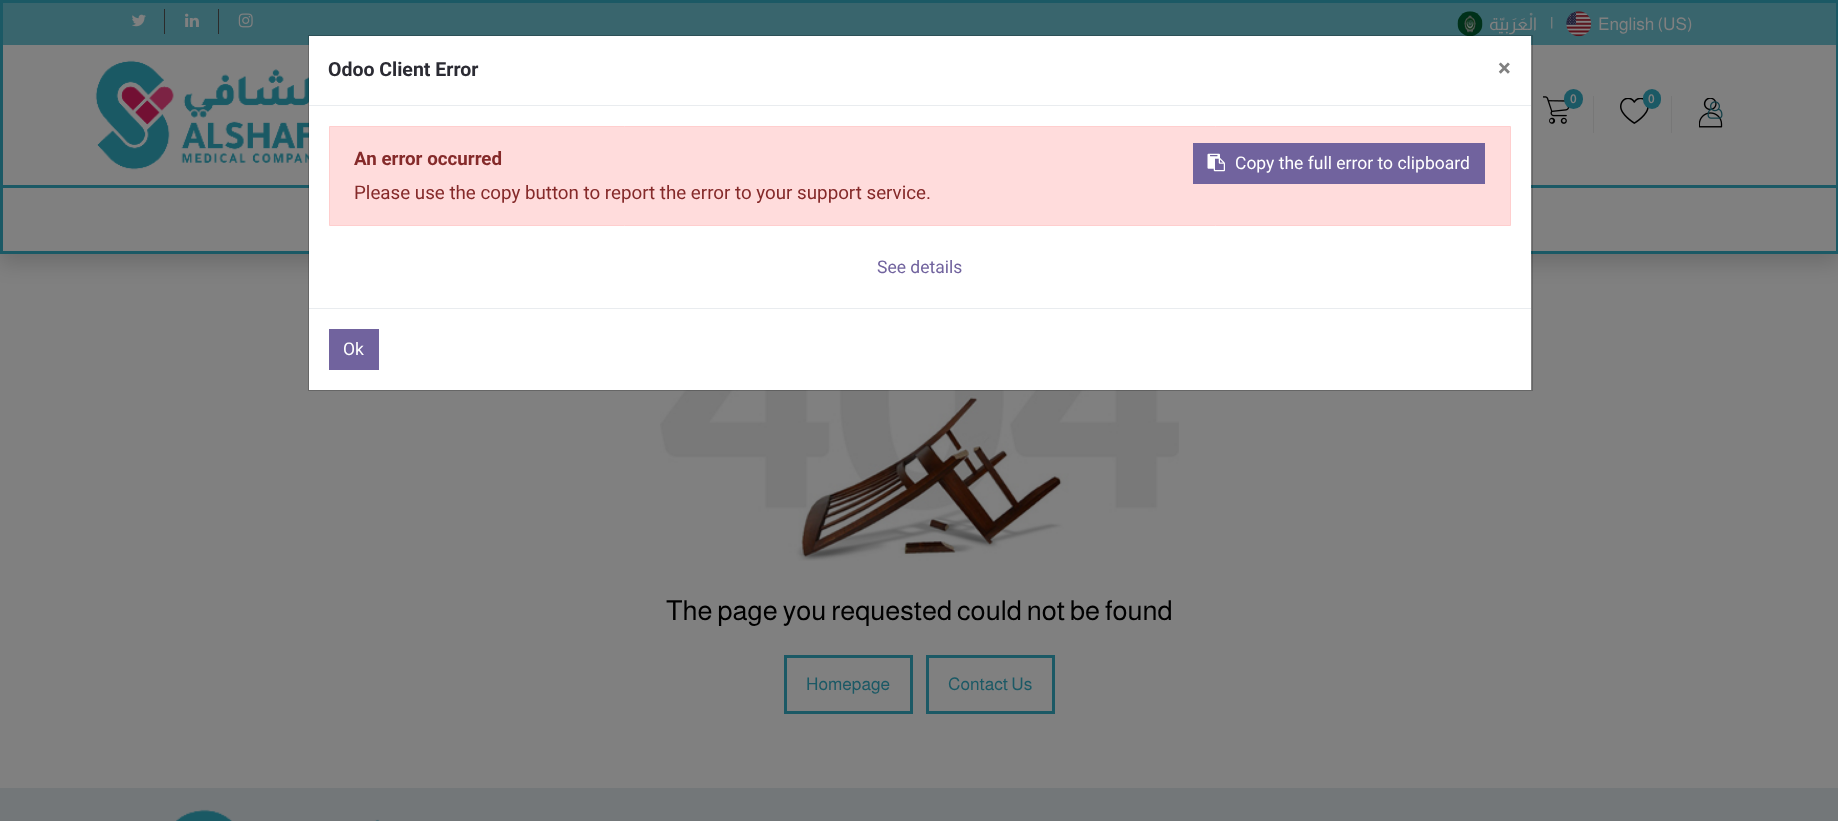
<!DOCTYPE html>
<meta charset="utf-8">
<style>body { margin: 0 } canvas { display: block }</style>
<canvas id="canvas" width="1838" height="821"></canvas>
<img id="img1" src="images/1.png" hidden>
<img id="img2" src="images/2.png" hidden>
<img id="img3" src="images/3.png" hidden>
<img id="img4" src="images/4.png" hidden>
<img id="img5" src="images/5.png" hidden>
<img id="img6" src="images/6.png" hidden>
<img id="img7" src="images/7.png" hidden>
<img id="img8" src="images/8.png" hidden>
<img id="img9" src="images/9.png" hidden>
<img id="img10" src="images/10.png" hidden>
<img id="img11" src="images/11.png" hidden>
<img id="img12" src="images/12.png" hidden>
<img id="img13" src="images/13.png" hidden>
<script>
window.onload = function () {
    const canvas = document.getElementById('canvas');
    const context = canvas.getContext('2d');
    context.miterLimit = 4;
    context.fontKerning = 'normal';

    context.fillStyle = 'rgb(128, 128, 128)';
    context.fillRect(0, 0, 1838, 821);
    context.fillStyle = 'rgba(0, 0, 0, 0.15)';
    context.filter = 'blur(10px)';
    context.beginPath();
    context.rect(0, 10, 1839, 254);
    context.fill();
    context.filter = 'none';
    context.fillStyle = 'rgb(128, 128, 128)';
    context.fillRect(3, 45, 1833, 206);
    context.strokeStyle = 'rgb(27, 89, 101)';
    context.lineWidth = 3;
    context.strokeRect(1.5, 1.5, 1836, 251);
    context.fillStyle = 'rgb(57, 101, 109)';
    context.fillRect(3, 3, 1833, 42);
    context.fillStyle = 'rgb(43, 43, 43)';
    context.fillRect(164, 9, 1, 25);
    context.drawImage(document.getElementById('img1'), 132, 14, 14, 13);
    context.fillRect(218, 9, 1, 25);
    context.drawImage(document.getElementById('img2'), 185, 13, 14, 14);
    context.drawImage(document.getElementById('img3'), 238, 13, 15, 15);
    context.drawImage(document.getElementById('img4'), 1457, 11, 26, 25);
    context.drawImage(document.getElementById('img5'), 1566, 11, 26, 26);
    context.drawImage(document.getElementById('img6'), 95, 60, 214, 110);
    context.fillStyle = 'rgb(119, 119, 119)';
    context.fillRect(1593, 96, 1, 37);
    context.drawImage(document.getElementById('img7'), 1543, 96, 27, 28);
    context.fillStyle = 'rgb(27, 89, 101)';
    context.beginPath();
    context.roundRect(1564, 89, 19, 20, 9.5);
    context.fill();
    context.fillStyle = 'rgb(119, 119, 119)';
    context.fillRect(1671, 96, 1, 37);
    context.drawImage(document.getElementById('img8'), 1620, 98, 29, 26);
    context.fillStyle = 'rgb(27, 89, 101)';
    context.beginPath();
    context.roundRect(1643, 89, 18, 20, 9);
    context.fill();
    context.drawImage(document.getElementById('img9'), 1699, 98, 24, 30);
    context.drawImage(document.getElementById('img10'), 1707, 101, 16, 18);
    context.fillRect(3, 185, 1833, 3);
    context.drawImage(document.getElementById('img11'), 660, 390, 519, 171);
    context.strokeRect(785.5, 656.5, 126, 56);
    context.strokeRect(927.5, 656.5, 126, 56);
    context.fillStyle = 'rgb(115, 119, 121)';
    context.fillRect(0, 788, 1838, 33);
    context.drawImage(document.getElementById('img12'), 176, 809, 203, 12);
    context.fillStyle = 'rgb(255, 255, 255)';
    context.fillRect(309, 36, 1222, 354);
    context.strokeStyle = 'rgba(0, 0, 0, 0.2)';
    context.lineWidth = 1;
    context.strokeRect(308.5, 35.5, 1224, 355);
    context.fillStyle = 'rgb(233, 236, 239)';
    context.fillRect(309, 105, 1222, 1);
    context.fillStyle = 'rgb(255, 220, 220)';
    context.beginPath();
    context.rect(329.5, 126.5, 1181, 99);
    context.fill();
    context.strokeStyle = 'rgb(255, 206, 206)';
    context.stroke();
    context.fillStyle = 'rgb(113, 99, 158)';
    context.fillRect(1193, 143, 292, 41);
    context.drawImage(document.getElementById('img13'), 1207, 153, 18, 19);
    context.fillStyle = 'rgb(233, 236, 239)';
    context.fillRect(309, 308, 1222, 1);
    context.fillStyle = 'rgb(113, 99, 158)';
    context.fillRect(329, 329, 50, 41);
    context.direction = 'rtl';
    context.font = '17.5px Almarai';
    context.fillStyle = 'rgb(128, 128, 128)';
    context.fillText('الْعَرَبيّة', 1537, 30);
    context.direction = 'ltr';
    context.fillText('|', 1550, 29);
    context.fillText('English (US)', 1598, 30);
    context.font = 'bold 12px Almarai';
    context.fillText('0', 1570, 103);
    context.fillText('0', 1648, 103);
    context.font = '27.5px Almarai';
    context.fillStyle = 'rgb(0, 0, 0)';
    context.fillText('The page you requested could not be found', 666, 620);
    context.font = '17.5px Almarai';
    context.fillStyle = 'rgb(27, 89, 101)';
    context.fillText('Homepage', 806, 690);
    context.fillText('Contact Us', 948, 690);
    context.font = 'bold 19.5px Roboto';
    context.fillStyle = 'rgb(43, 43, 51)';
    context.fillText('Odoo Client Error', 328, 76);
    context.font = 'bold 24px Roboto';
    context.fillStyle = 'rgb(128, 128, 128)';
    context.fillText('×', 1498, 76);
    context.font = 'bold 18.75px Roboto';
    context.fillStyle = 'rgb(133, 42, 42)';
    context.fillText('An error occurred', 354, 165);
    context.font = '17.5px Roboto';
    context.fillStyle = 'rgb(255, 255, 255)';
    context.fillText('Copy the full error to clipboard', 1235, 169);
    context.font = '18.75px Roboto';
    context.fillStyle = 'rgb(133, 42, 42)';
    context.fillText('Please use the copy button to report the error to your support service.', 354, 199);
    context.font = '17.5px Roboto';
    context.fillStyle = 'rgb(113, 99, 158)';
    context.fillText('See details', 877, 273);
    context.fillStyle = 'rgb(255, 255, 255)';
    context.fillText('Ok', 343, 355);
};
</script>
